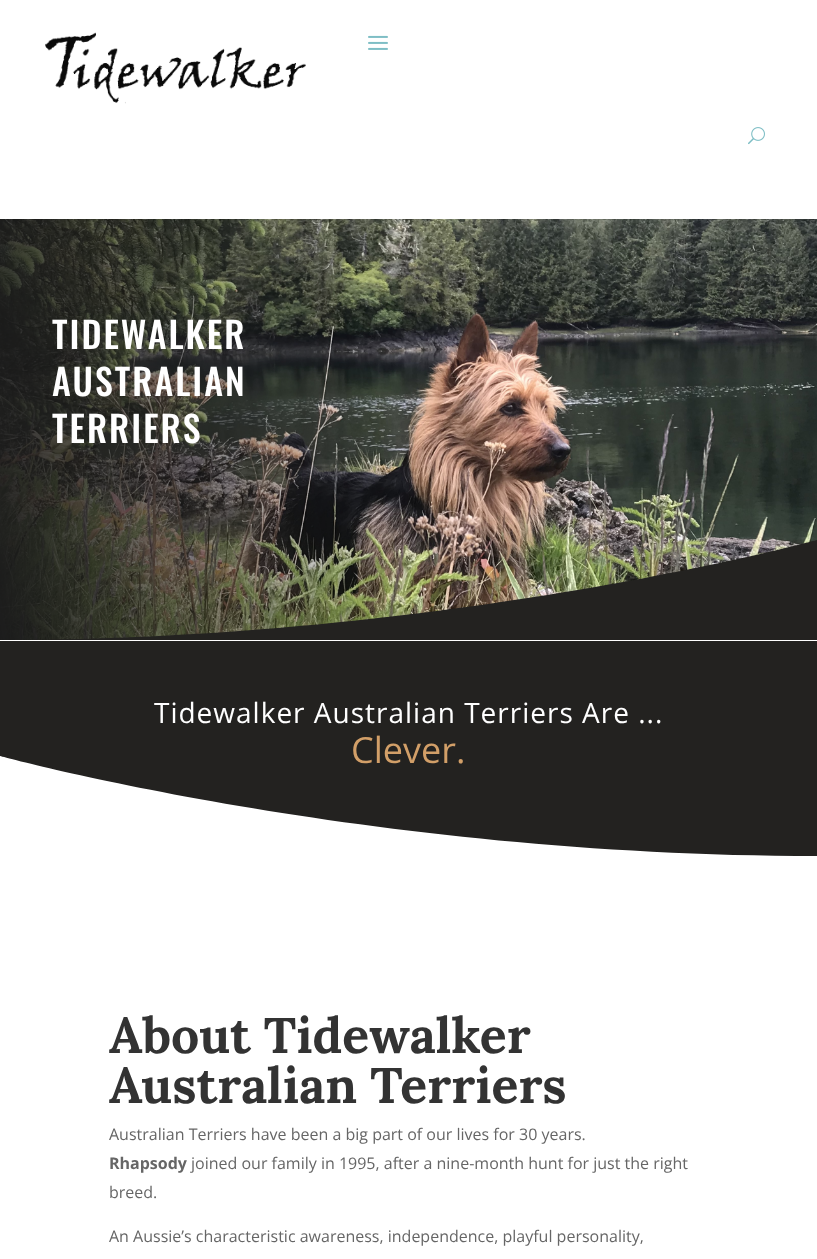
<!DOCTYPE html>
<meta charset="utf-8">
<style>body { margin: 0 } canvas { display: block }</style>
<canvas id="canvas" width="817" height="1259"></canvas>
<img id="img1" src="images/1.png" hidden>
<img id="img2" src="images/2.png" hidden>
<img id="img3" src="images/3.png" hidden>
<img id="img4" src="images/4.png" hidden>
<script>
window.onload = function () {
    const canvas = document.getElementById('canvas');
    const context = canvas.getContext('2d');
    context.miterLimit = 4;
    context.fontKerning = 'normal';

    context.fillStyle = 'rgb(255, 255, 255)';
    context.fillRect(0, 0, 817, 1259);
    context.drawImage(document.getElementById('img1'), 45, 32, 261, 72);
    context.drawImage(document.getElementById('img2'), 368, 35, 20, 15);
    context.drawImage(document.getElementById('img3'), 748, 127, 17, 18);
    context.drawImage(document.getElementById('img4'), 0, 219, 817, 421);
    context.fillStyle = 'rgb(35, 34, 32)';
    context.beginPath();
    context.moveTo(817, 640);
    context.lineTo(0, 640);
    context.bezierCurveTo(451, 640, 817, 540, 817, 540);
    context.closePath();
    context.fill();
    context.fillRect(0, 641, 817, 189);
    context.fillRect(404, 830, 413, 26);
    context.fillStyle = 'rgb(255, 255, 255)';
    context.beginPath();
    context.moveTo(0, 856);
    context.lineTo(817, 856);
    context.bezierCurveTo(366, 856, 0, 756, 0, 756);
    context.closePath();
    context.fill();
    context.letterSpacing = '2px';
    context.font = '500 36px Oswald';
    context.fillText('TIDEWALKER', 52, 349);
    context.fillText('AUSTRALIAN', 52, 396);
    context.fillText('TERRIERS', 52, 443);
    context.letterSpacing = '1px';
    context.font = '28px Open Sans';
    context.fillText('Tidewalker Australian Terriers Are ...', 154, 723);
    context.letterSpacing = '0px';
    context.font = '36px Open Sans';
    context.fillStyle = 'rgb(210, 159, 104)';
    context.fillText('Clever.', 351, 763);
    context.font = 'bold 50px Lora';
    context.fillStyle = 'rgb(51, 51, 51)';
    context.fillText('About Tidewalker', 109, 1053);
    context.fillText('Australian Terriers', 109, 1103);
    context.font = '16px Open Sans';
    context.fillStyle = 'rgb(102, 102, 102)';
    context.fillText('Australian Terriers have been a big part of our lives for 30 years.', 109, 1140);
    context.font = 'bold 16px Open Sans';
    context.fillText('Rhapsody', 109, 1169);
    context.font = '16px Open Sans';
    context.fillText('joined our family in 1995, after a nine-month hunt for just the right', 191, 1169);
    context.fillText('breed.', 109, 1198);
    context.fillText('An Aussie’s characteristic awareness, independence, playful personality,', 109, 1242);
};
</script>
